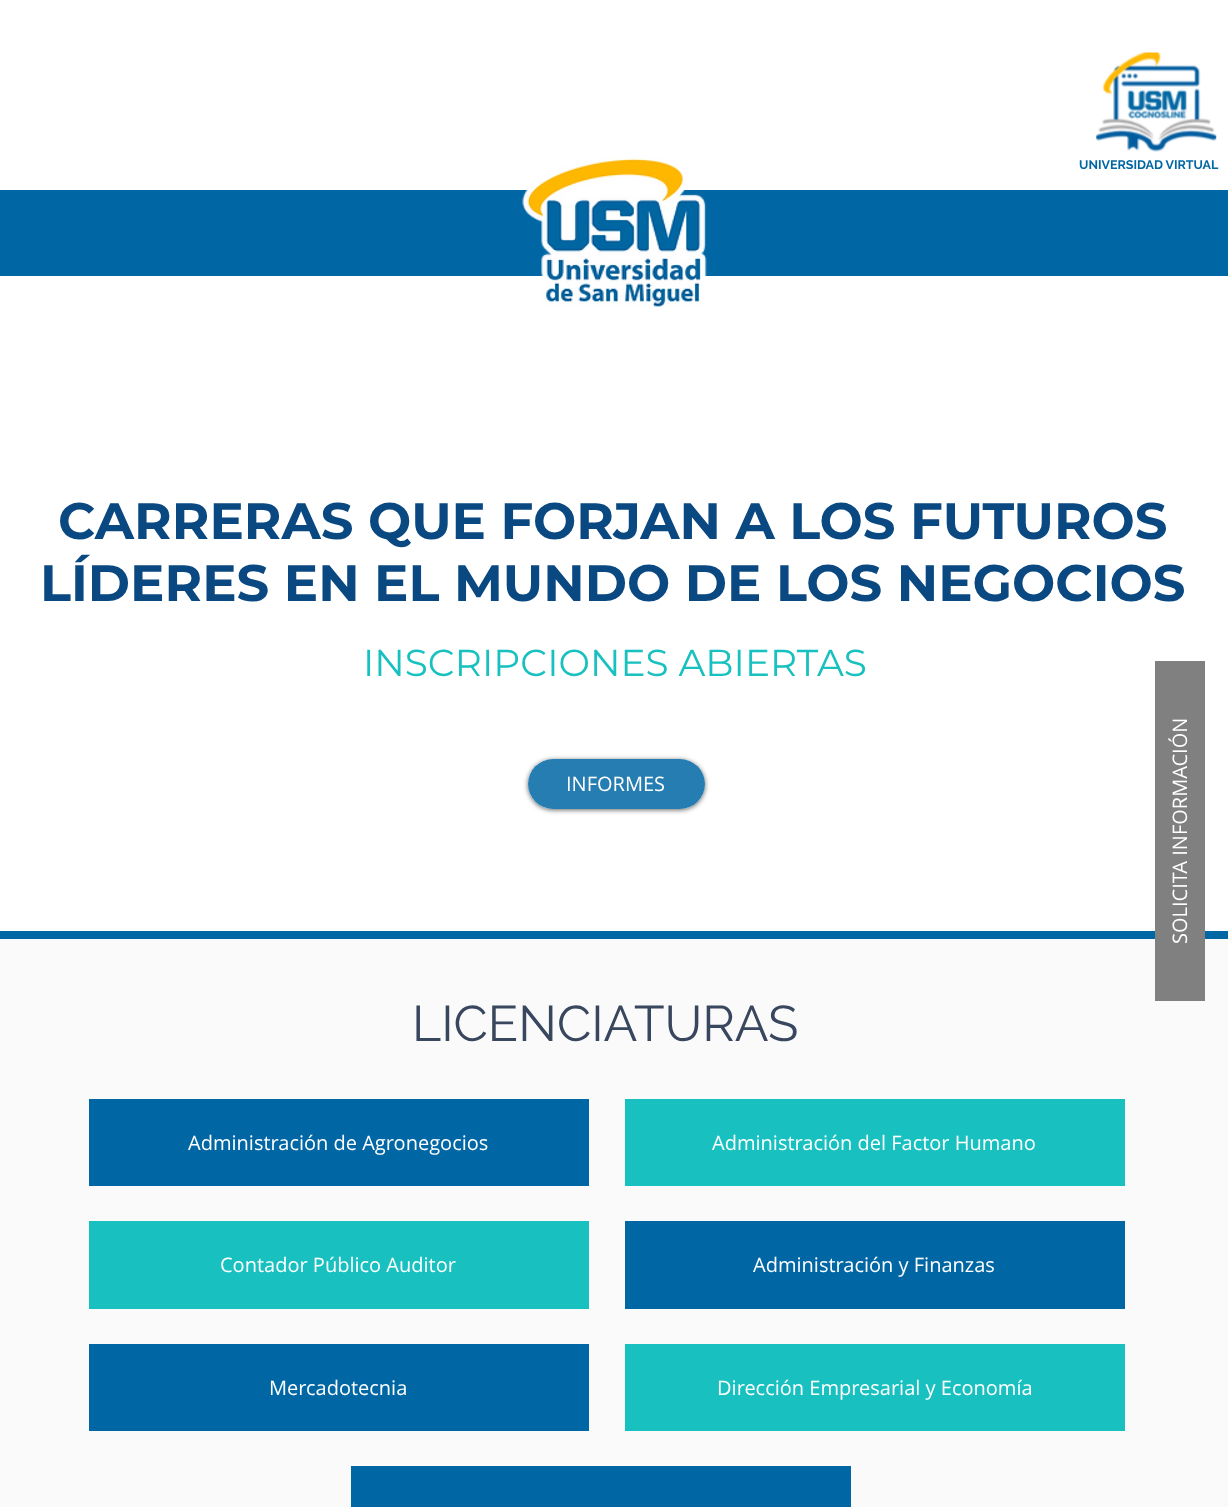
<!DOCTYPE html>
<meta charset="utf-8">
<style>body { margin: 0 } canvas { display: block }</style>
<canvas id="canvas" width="1228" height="1507"></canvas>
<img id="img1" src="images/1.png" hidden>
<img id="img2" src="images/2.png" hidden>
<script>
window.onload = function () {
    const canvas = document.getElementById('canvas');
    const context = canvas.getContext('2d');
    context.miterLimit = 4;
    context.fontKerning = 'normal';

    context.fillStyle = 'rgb(255, 255, 255)';
    context.fillRect(0, 0, 1228, 1507);
    context.drawImage(document.getElementById('img1'), 1096, 52, 121, 100);
    context.fillStyle = 'rgb(0, 102, 164)';
    context.fillRect(0, 190, 1228, 86);
    context.drawImage(document.getElementById('img2'), 522, 158, 185, 149);
    context.save();
    context.beginPath();
    context.moveTo(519, 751);
    context.lineTo(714, 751);
    context.lineTo(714, 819);
    context.lineTo(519, 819);
    context.closePath();
    context.moveTo(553, 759);
    context.lineTo(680, 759);
    context.bezierCurveTo(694, 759, 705, 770, 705, 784);
    context.bezierCurveTo(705, 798, 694, 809, 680, 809);
    context.lineTo(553, 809);
    context.bezierCurveTo(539, 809, 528, 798, 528, 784);
    context.bezierCurveTo(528, 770, 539, 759, 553, 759);
    context.closePath();
    context.clip('evenodd');
    context.fillStyle = 'rgba(0, 0, 0, 0.6)';
    context.filter = 'blur(2.5px)';
    context.beginPath();
    context.roundRect(528, 760, 177, 50, 25);
    context.fill();
    context.filter = 'none';
    context.restore();
    context.fillStyle = 'rgba(0, 102, 164, 0.85)';
    context.beginPath();
    context.roundRect(528, 759, 177, 50, 25);
    context.fill();
    context.fillStyle = 'rgb(0, 102, 164)';
    context.fillRect(0, 931, 1228, 8);
    context.fillStyle = 'rgb(250, 250, 250)';
    context.fillRect(0, 939, 1228, 568);
    context.fillStyle = 'rgb(0, 102, 164)';
    context.fillRect(89, 1099, 500, 87);
    context.fillStyle = 'rgb(24, 193, 192)';
    context.fillRect(625, 1099, 500, 87);
    context.fillRect(89, 1221, 500, 88);
    context.fillStyle = 'rgb(0, 102, 164)';
    context.fillRect(625, 1221, 500, 88);
    context.fillRect(89, 1344, 500, 87);
    context.fillStyle = 'rgb(24, 193, 192)';
    context.fillRect(625, 1344, 500, 87);
    context.fillStyle = 'rgb(0, 102, 164)';
    context.fillRect(351, 1466, 500, 41);
    context.fillStyle = 'rgb(128, 128, 128)';
    context.fillRect(1155, 661, 50, 340);
    context.font = 'bold 12.5px Raleway';
    context.fillStyle = 'rgb(0, 102, 164)';
    context.fillText('UNIVERSIDAD VIRTUAL', 1079, 169);
    context.font = 'bold 51.25px Montserrat';
    context.fillStyle = 'rgb(9, 72, 128)';
    context.fillText('CARRERAS QUE FORJAN A LOS FUTUROS', 58, 539);
    context.fillText('LÍDERES EN EL MUNDO DE LOS NEGOCIOS', 40, 601);
    context.font = '37.5px Montserrat';
    context.fillStyle = 'rgb(24, 193, 192)';
    context.fillText('INSCRIPCIONES ABIERTAS', 363, 676);
    context.font = '20px Open Sans';
    context.fillStyle = 'rgb(255, 255, 255)';
    context.fillText('INFORMES', 566, 791);
    context.font = '50px Raleway';
    context.fillStyle = 'rgb(57, 71, 94)';
    context.fillText('LICENCIATURAS', 412, 1041);
    context.font = '20px Open Sans';
    context.fillStyle = 'rgb(255, 255, 255)';
    context.fillText('Administración de Agronegocios', 188, 1150);
    context.fillText('Administración del Factor Humano', 712, 1150);
    context.fillText('Contador Público Auditor', 220, 1272);
    context.fillText('Administración y Finanzas', 753, 1272);
    context.fillText('Mercadotecnia', 269, 1395);
    context.fillText('Dirección Empresarial y Economía', 717, 1395);
    context.save();
    context.translate(1187, 944);
    context.rotate(-90 * Math.PI / 180);
    context.fillText('SOLICITA INFORMACIÓN', 0, 0);
    context.restore();
};
</script>
